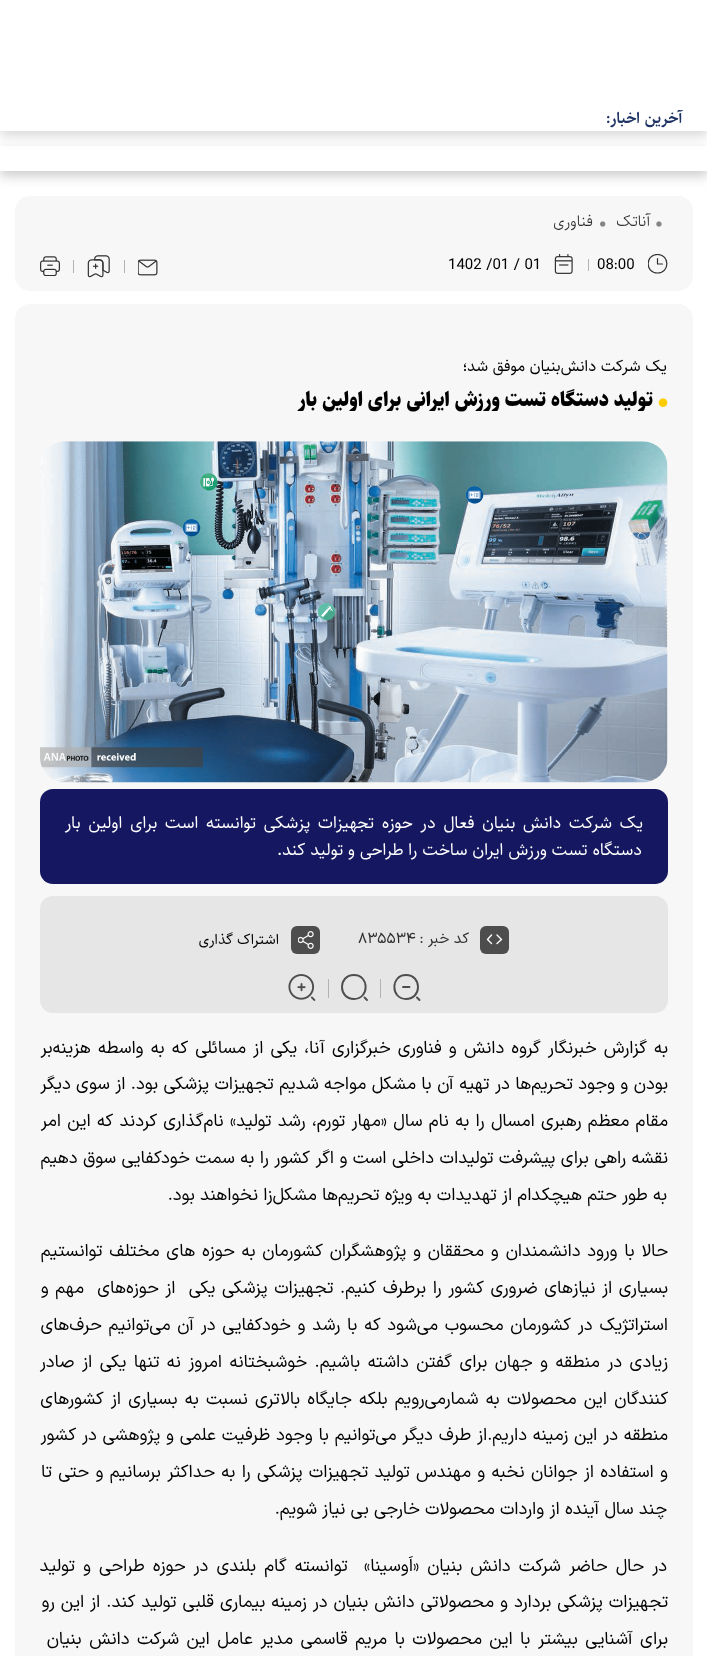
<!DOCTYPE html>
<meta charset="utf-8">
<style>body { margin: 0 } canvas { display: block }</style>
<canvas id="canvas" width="707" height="1656"></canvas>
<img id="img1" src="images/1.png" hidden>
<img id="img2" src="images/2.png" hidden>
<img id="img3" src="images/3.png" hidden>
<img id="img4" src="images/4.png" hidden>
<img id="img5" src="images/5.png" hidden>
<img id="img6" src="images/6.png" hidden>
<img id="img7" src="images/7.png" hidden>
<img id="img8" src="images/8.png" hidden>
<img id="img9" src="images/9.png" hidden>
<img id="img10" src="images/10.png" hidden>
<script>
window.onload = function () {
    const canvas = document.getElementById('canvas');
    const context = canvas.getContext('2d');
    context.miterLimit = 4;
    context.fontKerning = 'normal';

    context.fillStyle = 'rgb(255, 255, 255)';
    context.fillRect(0, 0, 707, 1656);
    context.fillStyle = 'rgba(0, 0, 0, 0.2)';
    context.filter = 'blur(6px)';
    context.beginPath();
    context.rect(0, 151, 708, 25);
    context.fill();
    context.filter = 'none';
    context.fillStyle = 'rgb(255, 255, 255)';
    context.fillRect(0, 146, 707, 25);
    context.fillStyle = 'rgba(0, 0, 0, 0.15)';
    context.filter = 'blur(6px)';
    context.beginPath();
    context.rect(0, 5, 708, 131);
    context.fill();
    context.filter = 'none';
    context.fillStyle = 'rgb(255, 255, 255)';
    context.fillRect(0, 0, 707, 131);
    context.fillStyle = 'rgb(247, 247, 247)';
    context.beginPath();
    context.roundRect(15, 196, 678, 95, 15);
    context.fill();
    context.drawImage(document.getElementById('img1'), 656, 221, 6, 6);
    context.drawImage(document.getElementById('img2'), 600, 221, 6, 6);
    context.save();
    context.beginPath();
    context.rect(648, 254, 20, 20);
    context.clip();
    context.beginPath();
    context.moveTo(657.5, 258.5);
    context.lineTo(657.5, 264);
    context.lineTo(662.5, 264);
    context.moveTo(657.5, 273);
    context.bezierCurveTo(645, 273, 645, 254.5, 657.5, 254.5);
    context.bezierCurveTo(670, 254.5, 670, 273, 657.5, 273);
    context.closePath();
    context.strokeStyle = 'rgb(48, 48, 48)';
    context.lineWidth = 1.2;
    context.lineCap = 'round';
    context.lineJoin = 'round';
    context.stroke();
    context.restore();
    context.fillStyle = 'rgb(179, 179, 179)';
    context.fillRect(588, 259, 1, 12);
    context.drawImage(document.getElementById('img3'), 554, 254, 19, 20);
    context.drawImage(document.getElementById('img4'), 138, 259, 20, 17);
    context.fillRect(124, 260, 1, 13);
    context.drawImage(document.getElementById('img5'), 87, 255, 23, 23);
    context.fillRect(73, 260, 1, 13);
    context.drawImage(document.getElementById('img6'), 40, 256, 20, 20);
    context.fillStyle = 'rgb(247, 247, 247)';
    context.beginPath();
    context.roundRect(15, 304, 678, 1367, 15);
    context.fill();
    context.drawImage(document.getElementById('img7'), 658, 398, 10, 9);
    context.drawImage(document.getElementById('img8'), 40, 441, 628, 342);
    context.fillStyle = 'rgb(21, 24, 96)';
    context.beginPath();
    context.roundRect(40, 789, 628, 95, 13);
    context.fill();
    context.fillStyle = 'rgb(230, 230, 230)';
    context.beginPath();
    context.roundRect(40, 896, 628, 117, 13);
    context.fill();
    context.fillStyle = 'rgb(77, 77, 77)';
    context.beginPath();
    context.roundRect(480, 926, 29, 28, 6);
    context.fill();
    context.beginPath();
    context.moveTo(497, 943.5);
    context.lineTo(501.5, 939.5);
    context.lineTo(497, 935);
    context.moveTo(491.5, 935);
    context.lineTo(487.5, 939.5);
    context.lineTo(491.5, 943.5);
    context.strokeStyle = 'rgb(255, 255, 255)';
    context.lineWidth = 1.4;
    context.lineCap = 'round';
    context.lineJoin = 'round';
    context.stroke();
    context.beginPath();
    context.roundRect(291, 926, 29, 28, 6);
    context.fill();
    context.drawImage(document.getElementById('img9'), 298, 931, 16, 18);
    context.beginPath();
    context.moveTo(403, 987);
    context.lineTo(409.5, 987);
    context.moveTo(406, 999);
    context.bezierCurveTo(422, 999, 422, 975, 406, 975);
    context.bezierCurveTo(390.5, 975, 390.5, 999, 406, 999);
    context.closePath();
    context.moveTo(419.5, 1000);
    context.lineTo(417, 997.5);
    context.strokeStyle = 'rgb(77, 77, 77)';
    context.lineWidth = 1.9;
    context.stroke();
    context.fillStyle = 'rgb(179, 179, 179)';
    context.fillRect(380, 979, 1, 19);
    context.beginPath();
    context.moveTo(354, 999);
    context.bezierCurveTo(369.5, 999, 369.5, 975, 354, 975);
    context.bezierCurveTo(338, 975, 338, 999, 354, 999);
    context.closePath();
    context.moveTo(367, 1000);
    context.lineTo(364.5, 997.5);
    context.stroke();
    context.fillRect(328, 979, 1, 19);
    context.drawImage(document.getElementById('img10'), 288, 974, 28, 27);
    context.direction = 'rtl';
    context.font = '600 16.25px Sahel';
    context.fillStyle = 'rgb(31, 52, 101)';
    context.fillText('آخرین اخبار:', 682, 123);
    context.font = '300 16.25px Sahel';
    context.fillStyle = 'rgb(48, 48, 48)';
    context.fillText('آناتک', 650, 226);
    context.fillText('فناوری', 593, 226);
    context.direction = 'ltr';
    context.font = '15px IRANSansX';
    context.fillStyle = 'rgb(0, 0, 0)';
    context.fillText('08:00', 597, 269);
    context.fillText('1402 /01 / 01', 448, 269);
    context.direction = 'rtl';
    context.font = '16.25px Sahel';
    context.fillText('یک شرکت دانش‌بنیان موفق شد؛', 667, 371);
    context.font = '900 20px Sahel';
    context.fillText('تولید دستگاه تست ورزش ایرانی برای اولین بار', 653, 406);
    context.wordSpacing = '2.75px';
    context.font = '17.5px Sahel';
    context.fillStyle = 'rgb(255, 255, 255)';
    context.fillText('یک شرکت دانش بنیان فعال در حوزه تجهیزات پزشکی توانسته است برای اولین بار', 643, 828);
    context.wordSpacing = '0px';
    context.fillText('دستگاه تست ورزش ایران ساخت را طراحی و تولید کند.', 642, 855);
    context.font = '15px IRANSansX';
    context.fillStyle = 'rgb(48, 48, 48)';
    context.fillText('کد خبر :', 469, 943);
    context.direction = 'ltr';
    context.fillText('۸۳۵۵۳۴', 358, 943);
    context.direction = 'rtl';
    context.font = '15px Sahel';
    context.fillStyle = 'rgb(0, 0, 0)';
    context.fillText('اشتراک گذاری', 279, 944);
    context.wordSpacing = '1.9px';
    context.font = '17.5px IRANSansX';
    context.fillText('به گزارش خبرنگار گروه دانش و فناوری خبرگزاری آنا، یکی از مسائلی که به واسطه هزینه‌بر', 668, 1053);
    context.wordSpacing = '0.25px';
    context.fillText('بودن و وجود تحریم‌ها در تهیه آن با مشکل مواجه شدیم تجهیزات پزشکی بود. از سوی دیگر', 668, 1089);
    context.wordSpacing = '1.1px';
    context.fillText('مقام معظم رهبری امسال را به نام سال «مهار تورم، رشد تولید» نام‌گذاری کردند که این امر', 668, 1126);
    context.wordSpacing = '0.25px';
    context.fillText('نقشه راهی برای پیشرفت تولیدات داخلی است و اگر کشور را به سمت خودکفایی سوق دهیم', 668, 1163);
    context.wordSpacing = '0px';
    context.fillText('به طور حتم هیچکدام از تهدیدات به ویژه تحریم‌ها مشکل‌زا نخواهند بود.', 667, 1200);
    context.wordSpacing = '1.6px';
    context.fillText('حالا با ورود دانشمندان و محققان و پژوهشگران کشورمان به حوزه های مختلف توانستیم', 668, 1256);
    context.wordSpacing = '1.4px';
    context.fillText('بسیاری از نیازهای ضروری کشور را برطرف کنیم. تجهیزات پزشکی یکی  از حوزه‌های  مهم و', 668, 1293);
    context.wordSpacing = '1.6px';
    context.fillText('استراتژیک در کشورمان محسوب می‌شود که با رشد و خودکفایی در آن می‌توانیم حرف‌های', 668, 1330);
    context.wordSpacing = '2.25px';
    context.fillText('زیاد‌ی در منطقه و جهان برای گفتن داشته باشیم. خوشبختانه امروز نه تنها یکی از صادر', 668, 1367);
    context.wordSpacing = '2px';
    context.fillText('کنندگان این محصولات به شمارمی‌رویم بلکه جایگاه بالاتری نسبت به بسیاری از کشور‌های', 668, 1404);
    context.wordSpacing = '0.6px';
    context.fillText('منطقه در این زمینه داریم.از طرف دیگر می‌توانیم با وجود ظرفیت علمی و پژوهشی در کشور', 668, 1440);
    context.wordSpacing = '1.1px';
    context.fillText('و استفاده از جوانان نخبه و مهندس تولید تجهیزات پزشکی را به حداکثر برسانیم و حتی تا', 668, 1477);
    context.wordSpacing = '0px';
    context.fillText('چند سال آینده از واردات محصولات خارجی بی نیاز شویم.', 667, 1514);
    context.wordSpacing = '2.9px';
    context.fillText('در حال حاضر شرکت دانش بنیان «اَوسینا»  توانسته گام بلندی در حوزه طراحی و تولید', 667, 1571);
    context.wordSpacing = '0.75px';
    context.fillText('تجهیزات پزشکی بردارد و محصولاتی دانش بنیان در زمینه بیماری قلبی تولید کند. از این رو', 668, 1607);
    context.wordSpacing = '2.25px';
    context.fillText('برای آشنایی بیشتر با این محصولات با مریم قاسمی مدیر عامل این شرکت دانش بنیان', 668, 1644);
};
</script>
